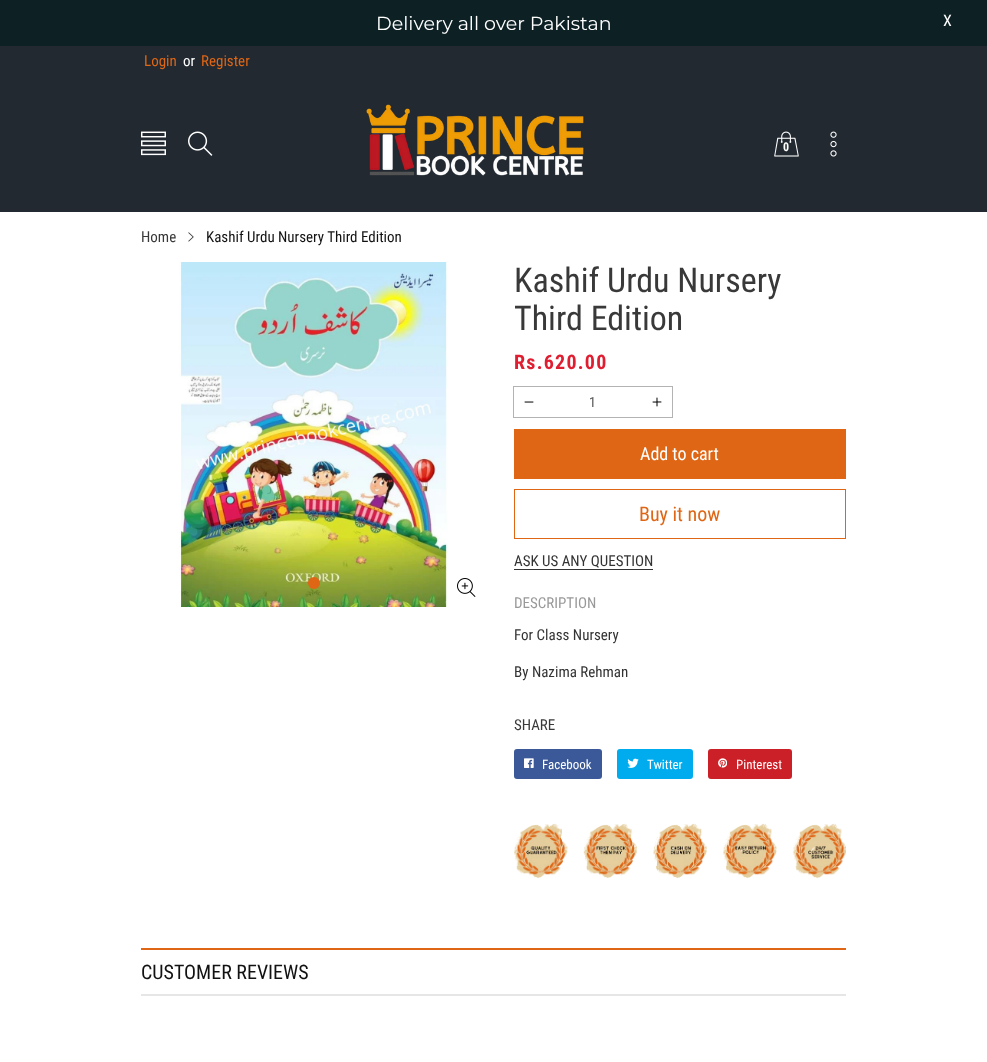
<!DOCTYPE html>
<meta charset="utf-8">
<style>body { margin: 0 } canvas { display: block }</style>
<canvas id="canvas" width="987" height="1062"></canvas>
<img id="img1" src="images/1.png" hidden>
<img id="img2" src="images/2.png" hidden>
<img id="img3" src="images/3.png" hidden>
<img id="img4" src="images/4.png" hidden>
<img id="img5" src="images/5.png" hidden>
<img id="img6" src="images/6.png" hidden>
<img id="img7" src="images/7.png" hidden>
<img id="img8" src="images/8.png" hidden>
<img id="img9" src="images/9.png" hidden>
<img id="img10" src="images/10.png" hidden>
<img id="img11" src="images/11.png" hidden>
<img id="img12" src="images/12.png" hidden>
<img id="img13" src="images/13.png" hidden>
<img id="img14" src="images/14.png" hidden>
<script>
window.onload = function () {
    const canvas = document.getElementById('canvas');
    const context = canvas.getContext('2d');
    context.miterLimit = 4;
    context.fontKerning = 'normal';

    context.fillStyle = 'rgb(255, 255, 255)';
    context.fillRect(0, 0, 987, 1062);
    context.fillStyle = 'rgb(13, 32, 36)';
    context.fillRect(0, 0, 987, 46);
    context.fillStyle = 'rgb(34, 41, 49)';
    context.fillRect(0, 46, 987, 166);
    context.drawImage(document.getElementById('img1'), 141, 131, 25, 25);
    context.drawImage(document.getElementById('img2'), 188, 131, 25, 25);
    context.drawImage(document.getElementById('img3'), 366, 104, 218, 72);
    context.drawImage(document.getElementById('img4'), 774, 131, 25, 26);
    context.drawImage(document.getElementById('img5'), 830, 131, 7, 26);
    context.drawImage(document.getElementById('img6'), 188, 232, 6, 10);
    context.drawImage(document.getElementById('img7'), 179, 262, 269, 345);
    context.drawImage(document.getElementById('img8'), 457, 578, 19, 19);
    context.fillStyle = 'rgb(223, 102, 21)';
    context.beginPath();
    context.arc(314, 583, 6, 0, 2 * Math.PI);
    context.fill();
    context.strokeStyle = 'rgb(179, 179, 179)';
    context.strokeRect(513.5, 386.5, 159, 31);
    context.drawImage(document.getElementById('img9'), 524, 401, 10, 2);
    context.drawImage(document.getElementById('img10'), 652, 397, 10, 10);
    context.fillRect(514, 429, 332, 50);
    context.strokeStyle = 'rgb(223, 102, 21)';
    context.strokeRect(514.5, 489.5, 331, 49);
    context.fillStyle = 'rgb(51, 51, 51)';
    context.fillRect(514, 569, 139, 1);
    context.fillStyle = 'rgb(59, 89, 152)';
    context.beginPath();
    context.roundRect(514, 749, 88, 30, 3);
    context.fill();
    context.drawImage(document.getElementById('img11'), 524, 758, 10, 10);
    context.fillStyle = 'rgb(0, 172, 237)';
    context.beginPath();
    context.roundRect(617, 749, 76, 30, 3);
    context.fill();
    context.drawImage(document.getElementById('img12'), 627, 758, 12, 10);
    context.fillStyle = 'rgb(203, 32, 39)';
    context.beginPath();
    context.roundRect(708, 749, 84, 30, 3);
    context.fill();
    context.drawImage(document.getElementById('img13'), 718, 758, 9, 10);
    context.drawImage(document.getElementById('img14'), 514, 823, 332, 56);
    context.fillStyle = 'rgb(223, 102, 21)';
    context.fillRect(141, 948, 705, 2);
    context.fillStyle = 'rgb(230, 230, 230)';
    context.fillRect(141, 994, 705, 2);
    context.font = '100 19px Montserrat';
    context.fillStyle = 'rgb(255, 255, 255)';
    context.fillText('Delivery all over Pakistan', 376, 30);
    context.font = '16px Roboto Condensed';
    context.fillText('X', 943, 26);
    context.font = '15px Roboto Condensed';
    context.fillStyle = 'rgb(223, 102, 21)';
    context.fillText('Login', 144, 66);
    context.fillStyle = 'rgb(255, 255, 255)';
    context.fillText('or', 183, 66);
    context.fillStyle = 'rgb(223, 102, 21)';
    context.fillText('Register', 201, 66);
    context.font = 'bold 12px Roboto Condensed';
    context.fillStyle = 'rgb(255, 255, 255)';
    context.fillText('0', 783, 151);
    context.font = '15px Roboto Condensed';
    context.fillStyle = 'rgb(57, 57, 57)';
    context.fillText('Home', 141, 242);
    context.fillStyle = 'rgb(18, 18, 18)';
    context.fillText('Kashif Urdu Nursery Third Edition', 206, 242);
    context.font = '34px Roboto Condensed';
    context.fillStyle = 'rgb(57, 57, 57)';
    context.fillText('Kashif Urdu Nursery', 514, 292);
    context.fillText('Third Edition', 514, 330);
    context.letterSpacing = '1.25px';
    context.font = 'bold 20px Roboto Condensed';
    context.fillStyle = 'rgb(223, 30, 49)';
    context.fillText('Rs.620.00', 514, 369);
    context.letterSpacing = '0px';
    context.font = '14px Roboto Condensed';
    context.fillStyle = 'rgb(87, 87, 87)';
    context.fillText('1', 589, 407);
    context.font = '18px Roboto Condensed';
    context.fillStyle = 'rgb(255, 255, 255)';
    context.fillText('Add to cart', 640, 460);
    context.font = '20px Roboto Condensed';
    context.fillStyle = 'rgb(223, 102, 21)';
    context.fillText('Buy it now', 639, 521);
    context.font = '15px Roboto Condensed';
    context.fillStyle = 'rgb(51, 51, 51)';
    context.fillText('ASK US ANY QUESTION', 514, 566);
    context.fillStyle = 'rgb(153, 153, 153)';
    context.fillText('DESCRIPTION', 514, 608);
    context.fillStyle = 'rgb(51, 51, 51)';
    context.fillText('For Class Nursery', 514, 640);
    context.fillText('By Nazima Rehman', 514, 677);
    context.fillStyle = 'rgb(57, 57, 57)';
    context.fillText('SHARE', 514, 730);
    context.font = '13px Roboto Condensed';
    context.fillStyle = 'rgb(255, 255, 255)';
    context.fillText('Facebook', 542, 769);
    context.fillText('Twitter', 647, 769);
    context.fillText('Pinterest', 736, 769);
    context.font = '20px Roboto Condensed';
    context.fillStyle = 'rgb(18, 18, 18)';
    context.fillText('CUSTOMER REVIEWS', 141, 979);
};
</script>
